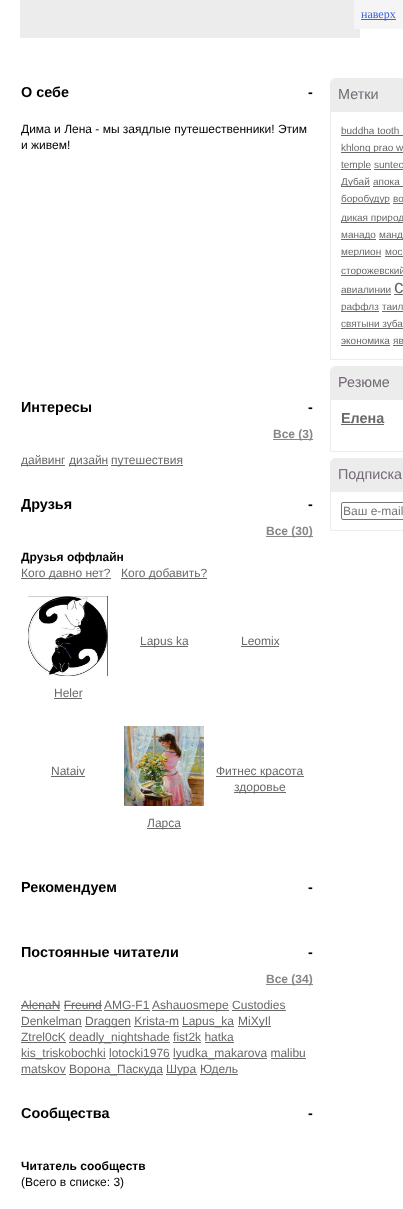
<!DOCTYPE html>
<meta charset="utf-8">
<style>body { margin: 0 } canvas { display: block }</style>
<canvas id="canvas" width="403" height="1209"></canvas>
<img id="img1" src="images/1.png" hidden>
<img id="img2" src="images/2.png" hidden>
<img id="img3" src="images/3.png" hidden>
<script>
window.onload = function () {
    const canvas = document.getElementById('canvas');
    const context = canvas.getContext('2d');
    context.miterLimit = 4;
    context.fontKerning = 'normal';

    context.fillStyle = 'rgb(255, 255, 255)';
    context.fillRect(0, 0, 403, 1209);
    context.fillStyle = 'rgb(236, 236, 236)';
    context.fillRect(20, 0, 340, 38);
    context.fillStyle = 'rgb(245, 245, 245)';
    context.fillRect(354, 0, 49, 29);
    context.fillStyle = 'rgb(61, 99, 223)';
    context.fillRect(361, 19, 35, 1);
    context.fillStyle = 'rgb(135, 135, 135)';
    context.fillRect(273, 439, 40, 1);
    context.fillStyle = 'rgb(105, 105, 105)';
    context.fillRect(21, 465, 44, 1);
    context.fillRect(69, 465, 39, 1);
    context.fillRect(111, 465, 72, 1);
    context.fillStyle = 'rgb(135, 135, 135)';
    context.fillRect(266, 536, 47, 1);
    context.fillStyle = 'rgb(105, 105, 105)';
    context.fillRect(21, 578, 90, 1);
    context.fillRect(121, 578, 86, 1);
    context.fillRect(140, 646, 48, 1);
    context.fillRect(241, 646, 38, 1);
    context.drawImage(document.getElementById('img1'), 28, 596, 80, 80);
    context.fillRect(54, 698, 28, 1);
    context.fillRect(51, 776, 34, 1);
    context.fillRect(216, 776, 88, 1);
    context.fillRect(234, 792, 52, 1);
    context.drawImage(document.getElementById('img2'), 124, 726, 80, 80);
    context.fillRect(147, 828, 34, 1);
    context.fillStyle = 'rgb(135, 135, 135)';
    context.fillRect(266, 984, 47, 1);
    context.fillStyle = 'rgb(105, 105, 105)';
    context.fillRect(21, 1010, 39, 1);
    context.fillRect(21, 1005, 39, 1);
    context.fillRect(104, 1010, 46, 1);
    context.fillRect(152, 1010, 77, 1);
    context.fillRect(64, 1005, 38, 1);
    context.fillRect(64, 1010, 38, 1);
    context.fillRect(232, 1010, 54, 1);
    context.fillRect(21, 1026, 61, 1);
    context.fillRect(85, 1026, 46, 1);
    context.fillRect(182, 1026, 52, 1);
    context.fillRect(238, 1026, 33, 1);
    context.fillRect(134, 1026, 45, 1);
    context.fillRect(21, 1042, 45, 1);
    context.fillRect(69, 1042, 101, 1);
    context.fillRect(173, 1042, 28, 1);
    context.fillRect(205, 1042, 29, 1);
    context.fillRect(21, 1058, 85, 1);
    context.fillRect(173, 1058, 94, 1);
    context.fillRect(109, 1058, 61, 1);
    context.fillRect(271, 1058, 35, 1);
    context.fillRect(21, 1074, 45, 1);
    context.fillRect(69, 1074, 94, 1);
    context.fillRect(166, 1074, 31, 1);
    context.fillRect(200, 1074, 38, 1);
    context.beginPath();
    context.moveTo(335, 78.5);
    context.lineTo(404, 78.5);
    context.bezierCurveTo(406.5, 78.5, 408.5, 80.5, 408.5, 83);
    context.lineTo(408.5, 359.5);
    context.lineTo(330.5, 359.5);
    context.lineTo(330.5, 83);
    context.bezierCurveTo(330.5, 80.5, 332.5, 78.5, 335, 78.5);
    context.closePath();
    context.strokeStyle = 'rgb(236, 236, 236)';
    context.stroke();
    context.fillStyle = 'rgb(236, 236, 236)';
    context.beginPath();
    context.moveTo(335, 79);
    context.lineTo(403, 79);
    context.bezierCurveTo(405, 79, 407, 81, 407, 83);
    context.lineTo(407, 112);
    context.lineTo(331, 112);
    context.lineTo(331, 83);
    context.bezierCurveTo(331, 81, 333, 79, 335, 79);
    context.closePath();
    context.fill();
    context.fillStyle = 'rgba(255, 255, 255, 0.06)';
    context.fillRect(339, 89, 38, 4);
    context.fillStyle = 'rgb(105, 105, 105)';
    context.fillRect(341, 135, 62, 1);
    context.fillRect(341, 152, 62, 1);
    context.fillRect(341, 169, 30, 1);
    context.fillRect(374, 169, 29, 1);
    context.fillRect(341, 186, 29, 1);
    context.fillRect(373, 186, 30, 1);
    context.fillRect(341, 203, 49, 1);
    context.fillRect(393, 203, 10, 1);
    context.fillRect(341, 222, 62, 1);
    context.fillRect(341, 239, 35, 1);
    context.fillRect(379, 239, 24, 1);
    context.fillRect(341, 256, 40, 1);
    context.fillRect(385, 256, 18, 1);
    context.fillRect(341, 275, 62, 1);
    context.fillRect(341, 294, 50, 1);
    context.fillRect(394, 294, 9, 1);
    context.fillRect(341, 311, 38, 1);
    context.fillRect(382, 311, 21, 1);
    context.fillRect(341, 328, 62, 1);
    context.fillRect(341, 345, 49, 1);
    context.fillRect(393, 345, 10, 1);
    context.beginPath();
    context.moveTo(335, 366.5);
    context.lineTo(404, 366.5);
    context.bezierCurveTo(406.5, 366.5, 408.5, 368.5, 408.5, 371);
    context.lineTo(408.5, 451.5);
    context.lineTo(330.5, 451.5);
    context.lineTo(330.5, 371);
    context.bezierCurveTo(330.5, 368.5, 332.5, 366.5, 335, 366.5);
    context.closePath();
    context.stroke();
    context.fillStyle = 'rgb(236, 236, 236)';
    context.beginPath();
    context.moveTo(335, 367);
    context.lineTo(403, 367);
    context.bezierCurveTo(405, 367, 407, 369, 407, 371);
    context.lineTo(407, 400);
    context.lineTo(331, 400);
    context.lineTo(331, 371);
    context.bezierCurveTo(331, 369, 333, 367, 335, 367);
    context.closePath();
    context.fill();
    context.fillStyle = 'rgba(255, 255, 255, 0.06)';
    context.fillRect(339, 377, 49, 4);
    context.fillStyle = 'rgb(105, 105, 105)';
    context.fillRect(341, 424, 43, 1);
    context.beginPath();
    context.moveTo(335, 458.5);
    context.lineTo(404, 458.5);
    context.bezierCurveTo(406.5, 458.5, 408.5, 460.5, 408.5, 463);
    context.lineTo(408.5, 530.5);
    context.lineTo(330.5, 530.5);
    context.lineTo(330.5, 463);
    context.bezierCurveTo(330.5, 460.5, 332.5, 458.5, 335, 458.5);
    context.closePath();
    context.stroke();
    context.fillStyle = 'rgb(236, 236, 236)';
    context.beginPath();
    context.moveTo(335, 459);
    context.lineTo(403, 459);
    context.bezierCurveTo(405, 459, 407, 461, 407, 463);
    context.lineTo(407, 492);
    context.lineTo(331, 492);
    context.lineTo(331, 463);
    context.bezierCurveTo(331, 461, 333, 459, 335, 459);
    context.closePath();
    context.fill();
    context.beginPath();
    context.roundRect(341.5, 502.5, 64, 17, 1.5);
    context.strokeStyle = 'rgb(118, 118, 118)';
    context.stroke();
    context.font = '12px Liberation Serif';
    context.fillStyle = 'rgb(61, 99, 223)';
    context.fillText('наверх', 361, 18);
    context.font = 'bold 14.4px Liberation Sans';
    context.fillStyle = 'rgb(0, 0, 0)';
    context.fillText('О себе', 21, 97);
    context.fillText('-', 308, 97);
    context.font = '12px Liberation Sans';
    context.fillText('Дима и Лена - мы заядлые путешественники! Этим', 21, 133);
    context.fillText('и живем!', 21, 149);
    context.font = 'bold 14.4px Liberation Sans';
    context.fillText('Интересы', 21, 412);
    context.fillText('-', 308, 412);
    context.font = 'bold 12px Liberation Sans';
    context.fillStyle = 'rgb(135, 135, 135)';
    context.fillText('Все (3)', 273, 438);
    context.font = '12px Liberation Sans';
    context.fillStyle = 'rgb(105, 105, 105)';
    context.fillText('дайвинг', 21, 464);
    context.fillText('дизайн', 69, 464);
    context.fillText('путешествия', 111, 464);
    context.font = 'bold 14.4px Liberation Sans';
    context.fillStyle = 'rgb(0, 0, 0)';
    context.fillText('Друзья', 21, 509);
    context.fillText('-', 308, 509);
    context.font = 'bold 12px Liberation Sans';
    context.fillStyle = 'rgb(135, 135, 135)';
    context.fillText('Все (30)', 266, 535);
    context.fillStyle = 'rgb(0, 0, 0)';
    context.fillText('Друзья оффлайн', 21, 561);
    context.font = '12px Liberation Sans';
    context.fillStyle = 'rgb(105, 105, 105)';
    context.fillText('Кого давно нет?', 21, 577);
    context.fillText('Кого добавить?', 121, 577);
    context.fillText('Lapus ka', 140, 645);
    context.fillText('Leomix', 241, 645);
    context.fillText('Heler', 54, 697);
    context.fillText('Nataiv', 51, 775);
    context.fillText('Фитнес красота', 216, 775);
    context.fillText('здоровье', 234, 791);
    context.fillText('Ларса', 147, 827);
    context.font = 'bold 14.4px Liberation Sans';
    context.fillStyle = 'rgb(0, 0, 0)';
    context.fillText('Рекомендуем', 21, 892);
    context.fillText('-', 308, 892);
    context.fillText('Постоянные читатели', 21, 957);
    context.fillText('-', 308, 957);
    context.font = 'bold 12px Liberation Sans';
    context.fillStyle = 'rgb(135, 135, 135)';
    context.fillText('Все (34)', 266, 983);
    context.font = '12px Liberation Sans';
    context.fillStyle = 'rgb(105, 105, 105)';
    context.fillText('AlenaN Freund', 21, 1009);
    context.fillText('AMG-F1', 104, 1009);
    context.fillText('Ashauosmepe Custodies', 152, 1009);
    context.fillText('Denkelman', 21, 1025);
    context.fillText('Draggen Krista-m', 85, 1025);
    context.fillText('Lapus_ka', 182, 1025);
    context.fillText('MiXyIl', 238, 1025);
    context.fillText('Ztrel0cK', 21, 1041);
    context.fillText('deadly_nightshade fist2k hatka', 69, 1041);
    context.fillText('kis_triskobochki lotocki1976', 21, 1057);
    context.fillText('lyudka_makarova malibu', 173, 1057);
    context.fillText('matskov', 21, 1073);
    context.fillText('Ворона_Паскуда', 69, 1073);
    context.fillText('Шура', 166, 1073);
    context.fillText('Юдель', 200, 1073);
    context.font = 'bold 14.4px Liberation Sans';
    context.fillStyle = 'rgb(0, 0, 0)';
    context.fillText('Сообщества', 21, 1118);
    context.fillText('-', 308, 1118);
    context.font = 'bold 12px Liberation Sans';
    context.fillText('Читатель сообществ', 21, 1170);
    context.font = '12px Liberation Sans';
    context.fillText('(Всего в списке: 3)', 21, 1186);
    context.font = '14.4px Liberation Sans';
    context.fillStyle = 'rgb(115, 106, 117)';
    context.fillText('Метки', 338, 99);
    context.font = '10px Liberation Sans';
    context.fillStyle = 'rgb(105, 105, 105)';
    context.fillText('buddha tooth', 341, 134);
    context.fillText('khlong prao w', 341, 151);
    context.fillText('temple', 341, 168);
    context.fillText('suntec', 374, 168);
    context.fillText('Дубай', 341, 185);
    context.fillText('апока', 373, 185);
    context.fillText('боробудур', 341, 202);
    context.fillText('во', 393, 202);
    context.fillText('дикая природ', 341, 221);
    context.fillText('манадо', 341, 238);
    context.fillText('манд', 379, 238);
    context.fillText('мерлион', 341, 255);
    context.fillText('мос', 385, 255);
    context.fillText('сторожевский', 341, 274);
    context.fillText('авиалинии', 341, 293);
    context.font = '19px Liberation Sans';
    context.fillText('с', 394, 293);
    context.font = '10px Liberation Sans';
    context.fillText('раффлз', 341, 310);
    context.fillText('таил', 382, 310);
    context.fillText('святыни зуба', 341, 327);
    context.fillText('экономика', 341, 344);
    context.fillText('яв', 393, 344);
    context.font = '14.4px Liberation Sans';
    context.fillStyle = 'rgb(115, 106, 117)';
    context.fillText('Резюме', 338, 387);
    context.font = 'bold 14.4px Liberation Sans';
    context.fillStyle = 'rgb(105, 105, 105)';
    context.fillText('Елена', 341, 423);
    context.font = '14.4px Liberation Sans';
    context.fillStyle = 'rgb(115, 106, 117)';
    context.fillText('Подписка', 338, 479);
    context.drawImage(document.getElementById('img3'), 339, 469, 61, 13);
    context.font = '12px Liberation Sans';
    context.fillStyle = 'rgb(117, 117, 117)';
    context.fillText('Ваш e-mail', 343, 515);
};
</script>
